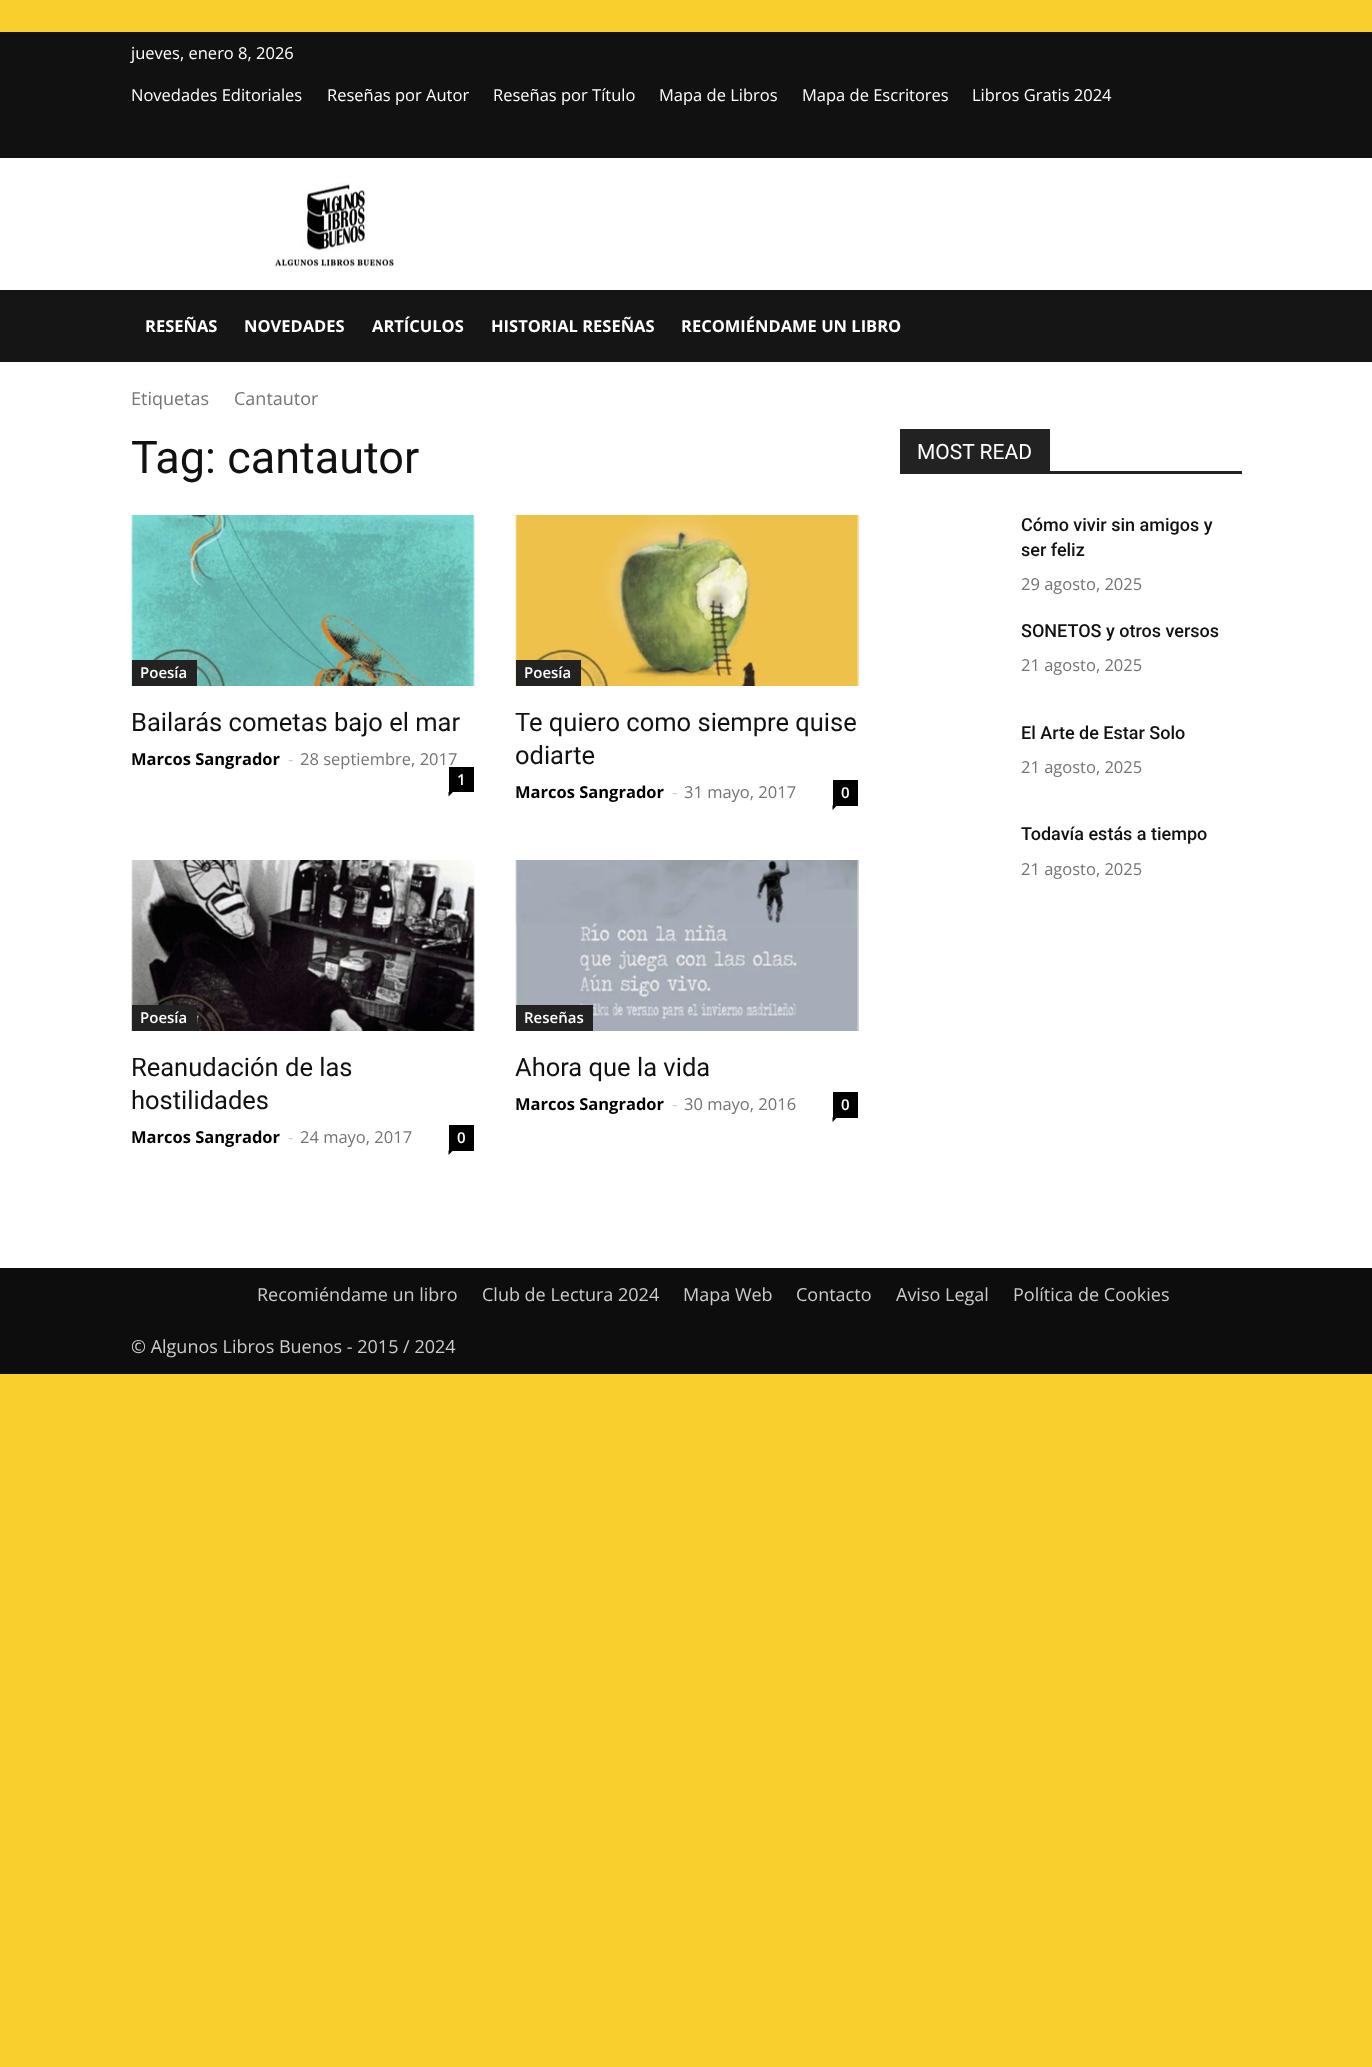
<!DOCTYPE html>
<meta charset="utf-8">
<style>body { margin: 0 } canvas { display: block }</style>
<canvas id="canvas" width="1372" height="2067"></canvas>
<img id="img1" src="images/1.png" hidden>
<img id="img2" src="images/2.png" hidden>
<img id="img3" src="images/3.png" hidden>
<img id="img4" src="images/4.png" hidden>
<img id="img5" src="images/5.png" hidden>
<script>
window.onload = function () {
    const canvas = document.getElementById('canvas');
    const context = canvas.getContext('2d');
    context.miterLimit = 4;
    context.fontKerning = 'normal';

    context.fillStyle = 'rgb(249, 207, 46)';
    context.fillRect(0, 0, 1372, 2067);
    context.fillStyle = 'rgb(17, 17, 17)';
    context.fillRect(0, 32, 1372, 126);
    context.fillStyle = 'rgb(255, 255, 255)';
    context.fillRect(0, 158, 1372, 132);
    context.drawImage(document.getElementById('img1'), 274, 182, 120, 85);
    context.fillStyle = 'rgb(21, 21, 21)';
    context.fillRect(0, 290, 1372, 72);
    context.fillStyle = 'rgb(255, 255, 255)';
    context.fillRect(0, 362, 1372, 906);
    context.drawImage(document.getElementById('img2'), 131, 515, 344, 171);
    context.fillStyle = 'rgb(34, 34, 34)';
    context.fillRect(132, 660, 65, 26);
    context.fillStyle = 'rgb(0, 0, 0)';
    context.beginPath();
    context.moveTo(448.5, 792);
    context.lineTo(453, 792);
    context.lineTo(448.5, 796.5);
    context.closePath();
    context.fill();
    context.drawImage(document.getElementById('img3'), 515, 515, 344, 171);
    context.fillStyle = 'rgb(34, 34, 34)';
    context.fillRect(516, 660, 65, 26);
    context.fillStyle = 'rgb(0, 0, 0)';
    context.fillRect(833, 780, 25, 26);
    context.beginPath();
    context.moveTo(832.5, 805.5);
    context.lineTo(837, 805.5);
    context.lineTo(832.5, 810);
    context.closePath();
    context.fill();
    context.drawImage(document.getElementById('img4'), 131, 860, 344, 171);
    context.fillStyle = 'rgb(34, 34, 34)';
    context.fillRect(132, 1005, 65, 26);
    context.fillStyle = 'rgb(0, 0, 0)';
    context.fillRect(449, 1125, 25, 26);
    context.beginPath();
    context.moveTo(448.5, 1150.5);
    context.lineTo(453, 1150.5);
    context.lineTo(448.5, 1155);
    context.closePath();
    context.fill();
    context.drawImage(document.getElementById('img5'), 515, 860, 344, 171);
    context.fillStyle = 'rgb(34, 34, 34)';
    context.fillRect(516, 1005, 77, 26);
    context.fillStyle = 'rgb(0, 0, 0)';
    context.fillRect(833, 1092, 25, 26);
    context.beginPath();
    context.moveTo(832.5, 1117.5);
    context.lineTo(837, 1117.5);
    context.lineTo(832.5, 1122);
    context.closePath();
    context.fill();
    context.fillStyle = 'rgb(34, 34, 34)';
    context.fillRect(900, 471, 342, 3);
    context.fillRect(900, 429, 150, 42);
    context.fillStyle = 'rgb(13, 13, 13)';
    context.fillRect(0, 1268, 1372, 106);
    context.font = '16.5px Open Sans';
    context.fillStyle = 'rgb(255, 255, 255)';
    context.fillText('jueves, enero 8, 2026', 131, 59);
    context.fillText('Novedades Editoriales', 131, 101);
    context.fillText('Reseñas por Autor', 327, 101);
    context.fillText('Reseñas por Título', 493, 101);
    context.fillText('Mapa de Libros', 659, 101);
    context.fillText('Mapa de Escritores', 802, 101);
    context.fillText('Libros Gratis 2024', 972, 101);
    context.font = 'bold 16.5px Open Sans';
    context.fillText('RESEÑAS', 145, 332);
    context.fillText('NOVEDADES', 244, 332);
    context.fillText('ARTÍCULOS', 372, 332);
    context.fillText('HISTORIAL RESEÑAS', 491, 332);
    context.fillText('RECOMIÉNDAME UN LIBRO', 681, 332);
    context.font = '18px Open Sans';
    context.fillStyle = 'rgb(116, 116, 116)';
    context.fillText('Etiquetas', 131, 405);
    context.fillText('Cantautor', 234, 405);
    context.font = '45px Roboto';
    context.fillStyle = 'rgb(17, 17, 17)';
    context.fillText('Tag: cantautor', 131, 473);
    context.font = '600 15px Open Sans';
    context.fillStyle = 'rgb(255, 255, 255)';
    context.fillText('Poesía', 140, 678);
    context.font = '25.5px Roboto';
    context.fillStyle = 'rgb(17, 17, 17)';
    context.fillText('Bailarás cometas bajo el mar', 131, 731);
    context.font = 'bold 16.5px Open Sans';
    context.fillStyle = 'rgb(0, 0, 0)';
    context.fillText('Marcos Sangrador', 131, 765);
    context.font = '16.5px Open Sans';
    context.fillStyle = 'rgb(204, 204, 204)';
    context.fillText('-', 288, 765);
    context.fillStyle = 'rgb(116, 116, 116)';
    context.fillText('28 septiembre, 2017', 300, 765);
    context.fillStyle = 'rgb(0, 0, 0)';
    context.fillRect(449, 767, 25, 25);
    context.font = '600 15px Open Sans';
    context.fillStyle = 'rgb(255, 255, 255)';
    context.fillText('1', 457, 785);
    context.fillText('Poesía', 524, 678);
    context.font = '25.5px Roboto';
    context.fillStyle = 'rgb(17, 17, 17)';
    context.fillText('Te quiero como siempre quise', 515, 731);
    context.fillText('odiarte', 515, 764);
    context.font = 'bold 16.5px Open Sans';
    context.fillStyle = 'rgb(0, 0, 0)';
    context.fillText('Marcos Sangrador', 515, 798);
    context.font = '16.5px Open Sans';
    context.fillStyle = 'rgb(204, 204, 204)';
    context.fillText('-', 672, 798);
    context.fillStyle = 'rgb(116, 116, 116)';
    context.fillText('31 mayo, 2017', 684, 798);
    context.font = '600 15px Open Sans';
    context.fillStyle = 'rgb(255, 255, 255)';
    context.fillText('0', 841, 798);
    context.fillText('Poesía', 140, 1023);
    context.font = '25.5px Roboto';
    context.fillStyle = 'rgb(17, 17, 17)';
    context.fillText('Reanudación de las', 131, 1076);
    context.fillText('hostilidades', 131, 1109);
    context.font = 'bold 16.5px Open Sans';
    context.fillStyle = 'rgb(0, 0, 0)';
    context.fillText('Marcos Sangrador', 131, 1143);
    context.font = '16.5px Open Sans';
    context.fillStyle = 'rgb(204, 204, 204)';
    context.fillText('-', 288, 1143);
    context.fillStyle = 'rgb(116, 116, 116)';
    context.fillText('24 mayo, 2017', 300, 1143);
    context.font = '600 15px Open Sans';
    context.fillStyle = 'rgb(255, 255, 255)';
    context.fillText('0', 457, 1143);
    context.fillText('Reseñas', 524, 1023);
    context.font = '25.5px Roboto';
    context.fillStyle = 'rgb(17, 17, 17)';
    context.fillText('Ahora que la vida', 515, 1076);
    context.font = 'bold 16.5px Open Sans';
    context.fillStyle = 'rgb(0, 0, 0)';
    context.fillText('Marcos Sangrador', 515, 1110);
    context.font = '16.5px Open Sans';
    context.fillStyle = 'rgb(204, 204, 204)';
    context.fillText('-', 672, 1110);
    context.fillStyle = 'rgb(116, 116, 116)';
    context.fillText('30 mayo, 2016', 684, 1110);
    context.font = '600 15px Open Sans';
    context.fillStyle = 'rgb(255, 255, 255)';
    context.fillText('0', 841, 1110);
    context.font = '21px Roboto';
    context.fillText('MOST READ', 917, 459);
    context.font = '500 18px Roboto';
    context.fillStyle = 'rgb(17, 17, 17)';
    context.fillText('Cómo vivir sin amigos y', 1021, 531);
    context.fillText('ser feliz', 1021, 556);
    context.font = '16.5px Open Sans';
    context.fillStyle = 'rgb(116, 116, 116)';
    context.fillText('29 agosto, 2025', 1021, 590);
    context.font = '500 18px Roboto';
    context.fillStyle = 'rgb(17, 17, 17)';
    context.fillText('SONETOS y otros versos', 1021, 637);
    context.font = '16.5px Open Sans';
    context.fillStyle = 'rgb(116, 116, 116)';
    context.fillText('21 agosto, 2025', 1021, 671);
    context.font = '500 18px Roboto';
    context.fillStyle = 'rgb(17, 17, 17)';
    context.fillText('El Arte de Estar Solo', 1021, 739);
    context.font = '16.5px Open Sans';
    context.fillStyle = 'rgb(116, 116, 116)';
    context.fillText('21 agosto, 2025', 1021, 773);
    context.font = '500 18px Roboto';
    context.fillStyle = 'rgb(17, 17, 17)';
    context.fillText('Todavía estás a tiempo', 1021, 840);
    context.font = '16.5px Open Sans';
    context.fillStyle = 'rgb(116, 116, 116)';
    context.fillText('21 agosto, 2025', 1021, 875);
    context.font = '18px Open Sans';
    context.fillStyle = 'rgb(204, 204, 204)';
    context.fillText('Recomiéndame un libro', 257, 1301);
    context.fillText('Club de Lectura 2024', 482, 1301);
    context.fillText('Mapa Web', 683, 1301);
    context.fillText('Contacto', 796, 1301);
    context.fillText('Aviso Legal', 896, 1301);
    context.fillText('Política de Cookies', 1013, 1301);
    context.fillText('© Algunos Libros Buenos - 2015 / 2024', 131, 1353);
};
</script>
